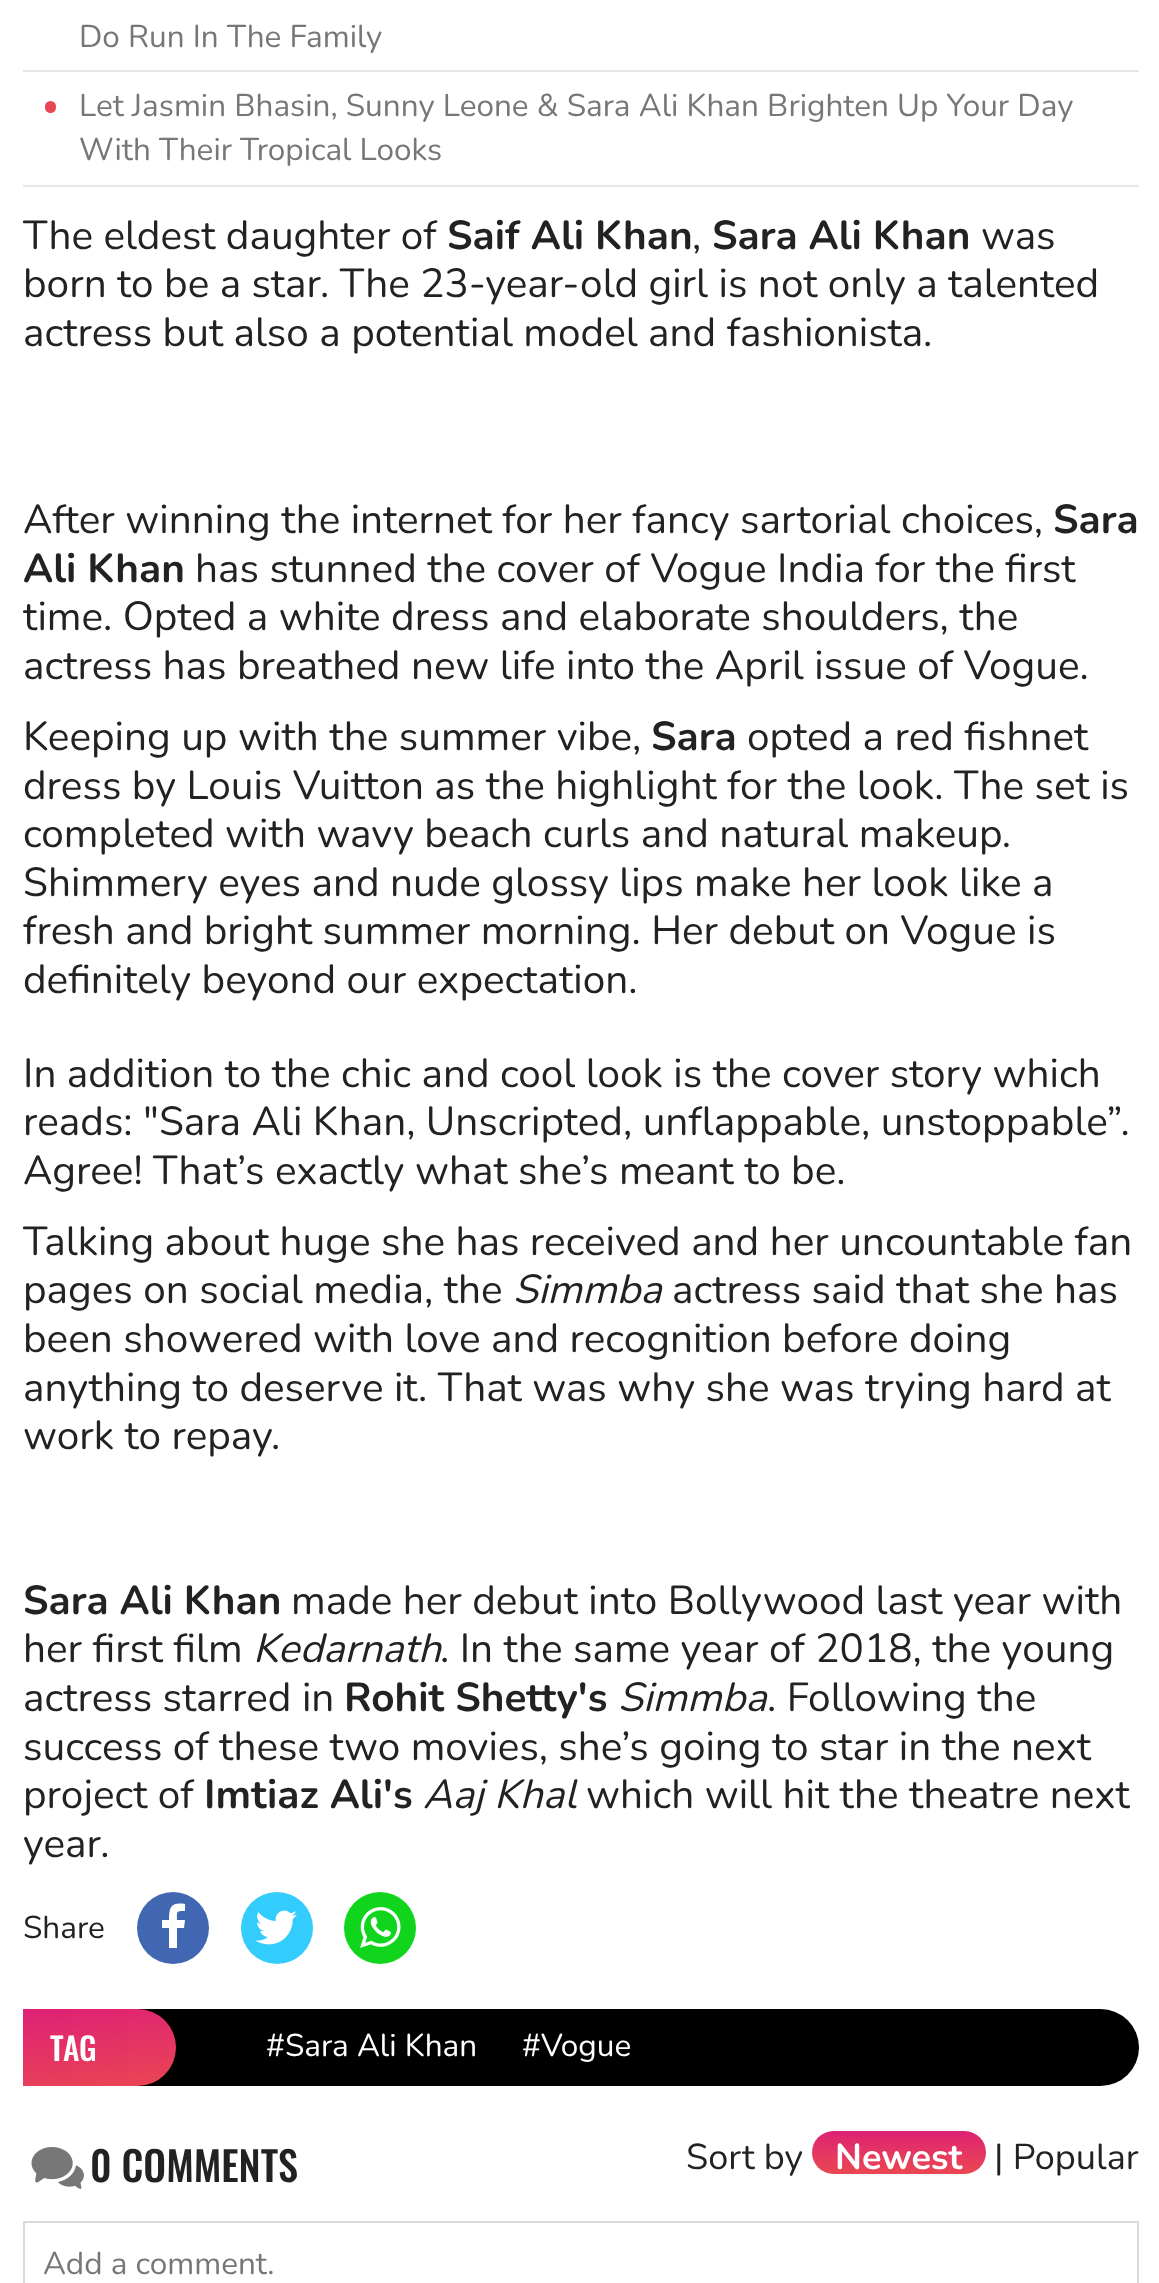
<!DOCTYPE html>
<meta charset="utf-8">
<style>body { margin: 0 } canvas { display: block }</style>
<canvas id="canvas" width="1159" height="2283"></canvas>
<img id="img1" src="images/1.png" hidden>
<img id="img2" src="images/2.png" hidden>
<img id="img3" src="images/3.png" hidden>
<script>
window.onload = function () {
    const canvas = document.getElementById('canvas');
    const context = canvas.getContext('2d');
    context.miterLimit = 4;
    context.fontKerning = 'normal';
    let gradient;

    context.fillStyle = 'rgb(255, 255, 255)';
    context.fillRect(0, 0, 1159, 2283);
    context.fillStyle = 'rgb(230, 230, 230)';
    context.fillRect(23, 70, 1116, 2);
    context.fillRect(23, 185, 1116, 2);
    context.fillStyle = 'rgb(233, 69, 83)';
    context.beginPath();
    context.roundRect(45, 101, 11, 12, 5.5);
    context.fill();
    context.fillStyle = 'rgb(66, 103, 178)';
    context.beginPath();
    context.arc(173, 1928, 36, 0, 2 * Math.PI);
    context.fill();
    context.fillStyle = 'rgb(255, 255, 255)';
    context.beginPath();
    context.moveTo(185, 1904);
    context.lineTo(185, 1911);
    context.bezierCurveTo(176, 1911, 177, 1911, 177, 1920);
    context.lineTo(185, 1920);
    context.lineTo(184, 1928);
    context.lineTo(177, 1928);
    context.lineTo(177, 1948);
    context.lineTo(169, 1948);
    context.lineTo(169, 1928);
    context.lineTo(162, 1928);
    context.lineTo(162, 1920);
    context.lineTo(169, 1920);
    context.bezierCurveTo(169, 1907, 171, 1902, 185, 1904);
    context.closePath();
    context.fill();
    context.fillStyle = 'rgb(50, 205, 253)';
    context.beginPath();
    context.arc(277, 1928, 36, 0, 2 * Math.PI);
    context.fill();
    context.drawImage(document.getElementById('img1'), 255, 1910, 42, 35);
    context.fillStyle = 'rgb(17, 213, 29)';
    context.beginPath();
    context.arc(380, 1928, 36, 0, 2 * Math.PI);
    context.fill();
    context.drawImage(document.getElementById('img2'), 360, 1907, 41, 41);
    context.fillStyle = 'rgb(0, 0, 0)';
    context.beginPath();
    context.roundRect(23, 2009, 1116, 77, [0, 38.5, 38.5, 0]);
    context.fill();
    gradient = context.createLinearGradient(106, 2096, 92, 1999);
    gradient.addColorStop(0, 'rgb(234, 70, 82)');
    gradient.addColorStop(1, 'rgb(222, 32, 118)');
    context.fillStyle = gradient;
    context.beginPath();
    context.roundRect(23, 2009, 153, 77, [0, 38.5, 38.5, 0]);
    context.fill();
    context.drawImage(document.getElementById('img3'), 31, 2147, 53, 42);
    gradient = context.createLinearGradient(899, 2131, 899, 2174);
    gradient.addColorStop(0, 'rgb(222, 33, 117)');
    gradient.addColorStop(0.6, 'rgb(230, 58, 94)');
    gradient.addColorStop(0.99, 'rgb(234, 70, 82)');
    context.fillStyle = gradient;
    context.beginPath();
    context.roundRect(812, 2131, 174, 43, 21.5);
    context.fill();
    context.strokeStyle = 'rgb(218, 218, 218)';
    context.lineWidth = 2;
    context.strokeRect(24, 2222, 1114, 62);
    context.font = '31.5px Nunito';
    context.fillStyle = 'rgb(119, 119, 119)';
    context.fillText('Do Run In The Family', 79, 47);
    context.fillText('Let Jasmin Bhasin, Sunny Leone & Sara Ali Khan Brighten Up Your Day', 79, 116);
    context.fillText('With Their Tropical Looks', 79, 160);
    context.font = '40.5px Nunito';
    context.fillStyle = 'rgb(34, 34, 34)';
    context.fillText('The eldest daughter of', 23, 249);
    context.font = 'bold 40.5px Nunito';
    context.fillText('Saif Ali Khan', 447, 249);
    context.font = '40.5px Nunito';
    context.fillText(',', 692, 249);
    context.font = 'bold 40.5px Nunito';
    context.fillText('Sara Ali Khan', 712, 249);
    context.font = '40.5px Nunito';
    context.fillText('was', 981, 249);
    context.fillText('born to be a star. The 23-year-old girl is not only a talented', 23, 297);
    context.fillText('actress but also a potential model and fashionista.', 23, 346);
    context.fillText('After winning the internet for her fancy sartorial choices,', 23, 533);
    context.font = 'bold 40.5px Nunito';
    context.fillText('Sara', 1053, 533);
    context.fillText('Ali Khan', 23, 582);
    context.font = '40.5px Nunito';
    context.fillText('has stunned the cover of Vogue India for the first', 195, 582);
    context.fillText('time. Opted a white dress and elaborate shoulders, the', 23, 630);
    context.fillText('actress has breathed new life into the April issue of Vogue.', 23, 679);
    context.fillText('Keeping up with the summer vibe,', 23, 750);
    context.font = 'bold 40.5px Nunito';
    context.fillText('Sara', 651, 750);
    context.font = '40.5px Nunito';
    context.fillText('opted a red fishnet', 747, 750);
    context.fillText('dress by Louis Vuitton as the highlight for the look. The set is', 23, 799);
    context.fillText('completed with wavy beach curls and natural makeup.', 23, 847);
    context.fillText('Shimmery eyes and nude glossy lips make her look like a', 23, 896);
    context.fillText('fresh and bright summer morning. Her debut on Vogue is', 23, 944);
    context.fillText('definitely beyond our expectation.', 23, 993);
    context.fillText('In addition to the chic and cool look is the cover story which', 23, 1087);
    context.fillText('reads: "Sara Ali Khan, Unscripted, unflappable, unstoppable”.', 23, 1135);
    context.fillText('Agree! That’s exactly what she’s meant to be.', 23, 1184);
    context.fillText('Talking about huge she has received and her uncountable fan', 23, 1255);
    context.fillText('pages on social media, the', 23, 1303);
    context.font = 'italic 40.5px Nunito';
    context.fillText('Simmba', 513, 1303);
    context.font = '40.5px Nunito';
    context.fillText('actress said that she has', 672, 1303);
    context.fillText('been showered with love and recognition before doing', 23, 1352);
    context.fillText('anything to deserve it. That was why she was trying hard at', 23, 1401);
    context.fillText('work to repay.', 23, 1449);
    context.font = 'bold 40.5px Nunito';
    context.fillText('Sara Ali Khan', 23, 1614);
    context.font = '40.5px Nunito';
    context.fillText('made her debut into Bollywood last year with', 291, 1614);
    context.fillText('her first film', 23, 1662);
    context.font = 'italic 40.5px Nunito';
    context.fillText('Kedarnath', 253, 1662);
    context.font = '40.5px Nunito';
    context.fillText('. In the same year of 2018, the young', 440, 1662);
    context.fillText('actress starred in', 23, 1711);
    context.font = 'bold 40.5px Nunito';
    context.fillText('Rohit Shetty\'s', 344, 1711);
    context.font = 'italic 40.5px Nunito';
    context.fillText('Simmba', 618, 1711);
    context.font = '40.5px Nunito';
    context.fillText('. Following the', 767, 1711);
    context.fillText('success of these two movies, she’s going to star in the next', 23, 1760);
    context.fillText('project of', 23, 1808);
    context.font = 'bold 40.5px Nunito';
    context.fillText('Imtiaz Ali\'s', 204, 1808);
    context.font = 'italic 40.5px Nunito';
    context.fillText('Aaj Khal', 423, 1808);
    context.font = '40.5px Nunito';
    context.fillText('which will hit the theatre next', 586, 1808);
    context.fillText('year.', 23, 1857);
    context.font = '31.5px Nunito';
    context.fillText('Share', 23, 1938);
    context.font = '500 31.5px Oswald';
    context.fillStyle = 'rgb(255, 255, 255)';
    context.fillText('TAG', 50, 2061);
    context.font = '31.5px Nunito';
    context.fillText('#Sara Ali Khan', 266, 2056);
    context.fillText('#Vogue', 522, 2056);
    context.font = '500 40.5px Oswald';
    context.fillStyle = 'rgb(34, 34, 34)';
    context.fillText('0 COMMENTS', 90, 2182);
    context.font = '36px Nunito';
    context.fillText('Sort by', 686, 2169);
    context.font = 'bold 36px Nunito';
    context.fillStyle = 'rgb(255, 255, 255)';
    context.fillText('Newest', 835, 2169);
    context.font = '36px Nunito';
    context.fillStyle = 'rgb(34, 34, 34)';
    context.fillText('| Popular', 994, 2169);
    context.font = '31.5px Nunito';
    context.fillStyle = 'rgb(119, 119, 119)';
    context.fillText('Add a comment.', 43, 2274);
};
</script>
